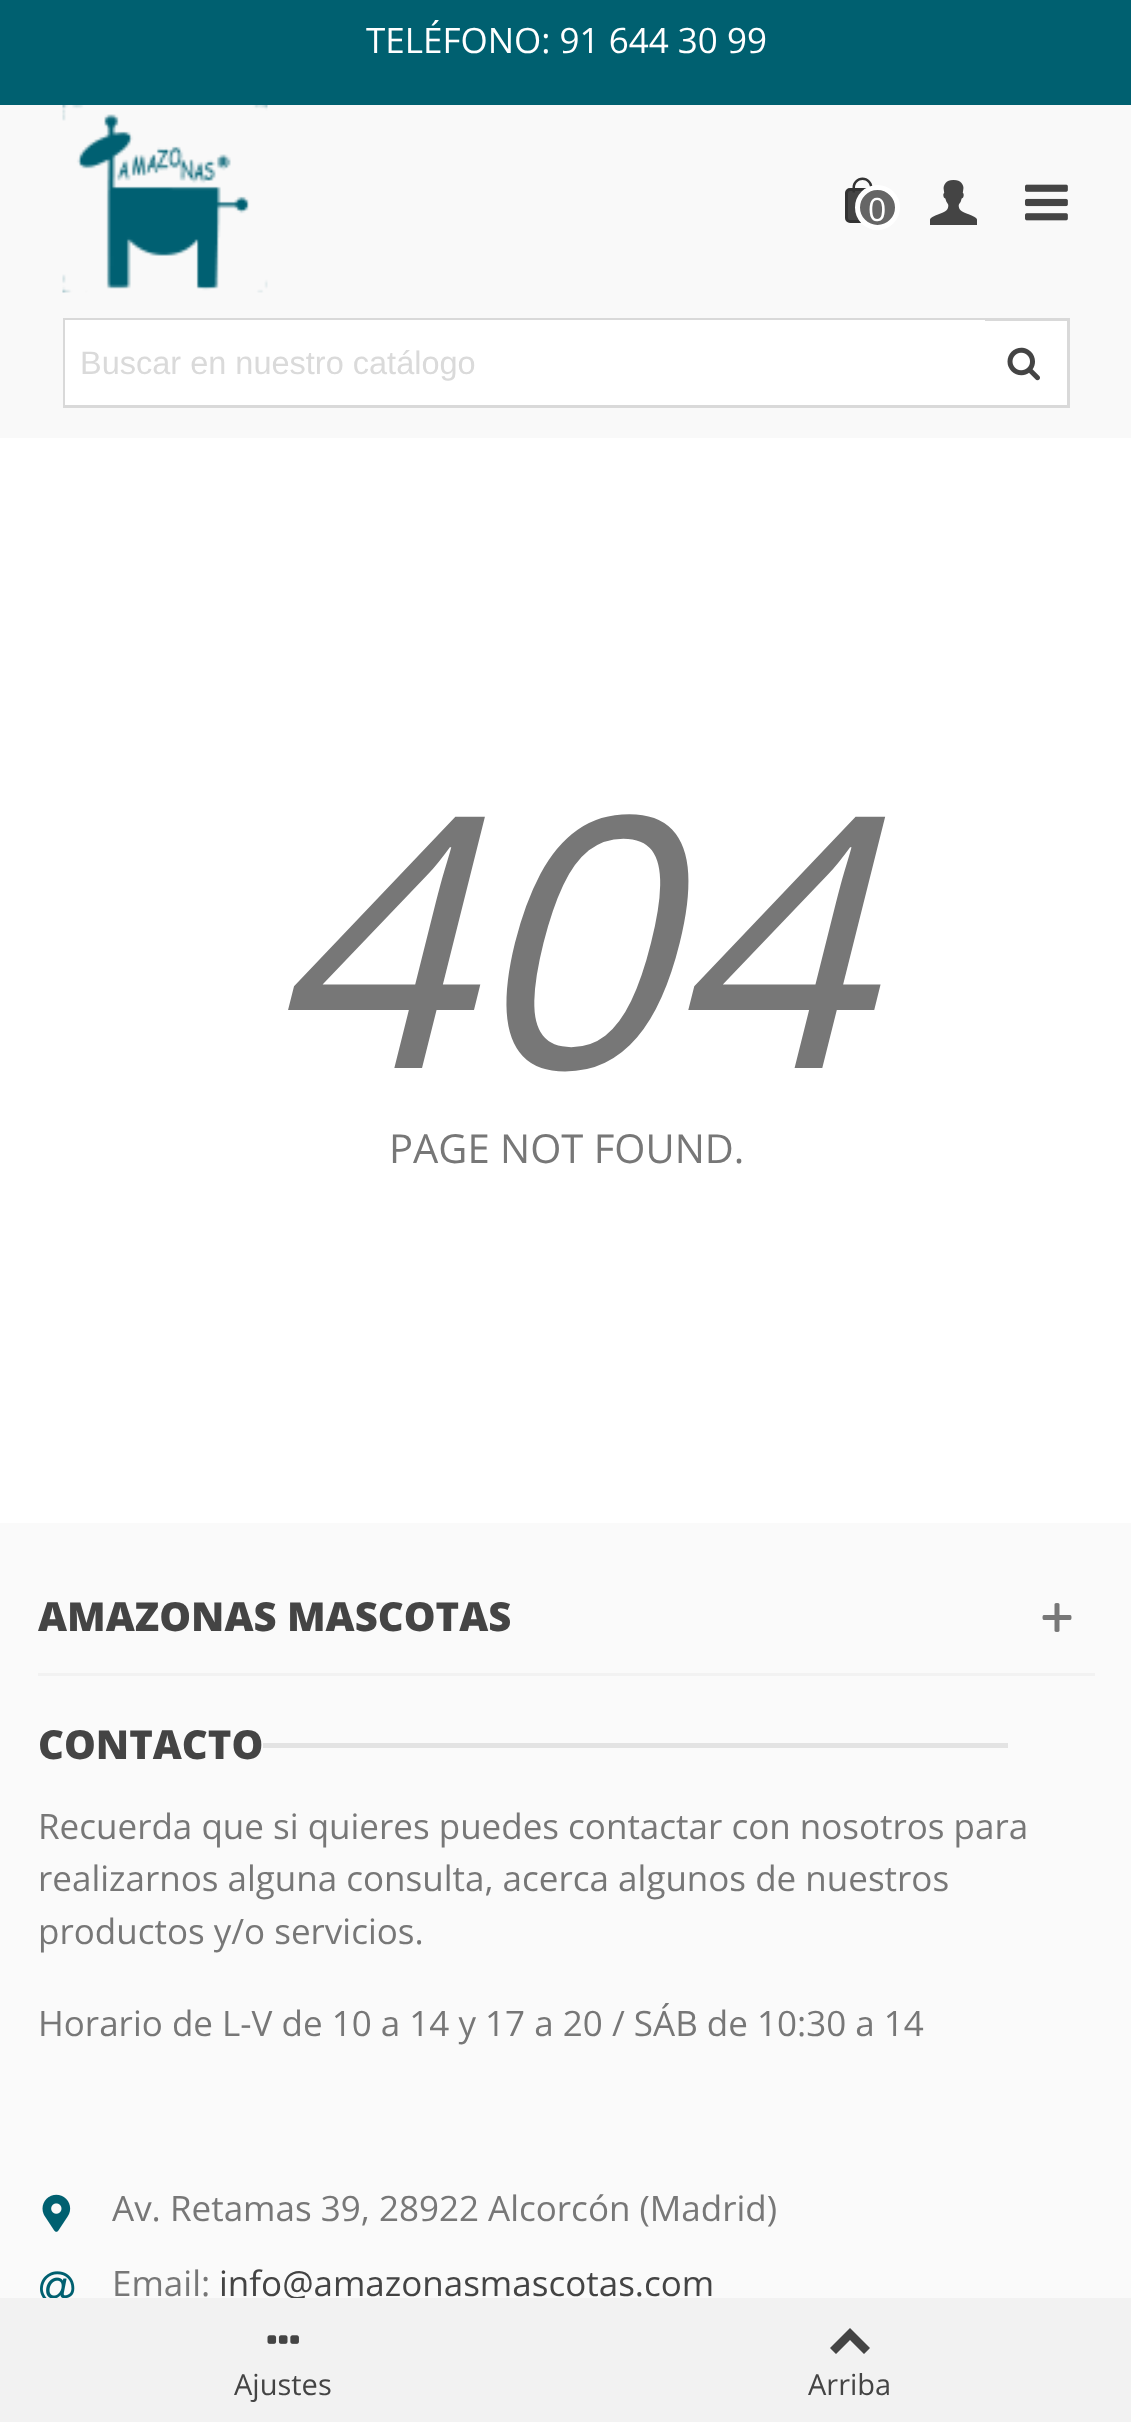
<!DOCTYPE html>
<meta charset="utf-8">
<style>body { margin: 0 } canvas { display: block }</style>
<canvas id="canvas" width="1131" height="2422"></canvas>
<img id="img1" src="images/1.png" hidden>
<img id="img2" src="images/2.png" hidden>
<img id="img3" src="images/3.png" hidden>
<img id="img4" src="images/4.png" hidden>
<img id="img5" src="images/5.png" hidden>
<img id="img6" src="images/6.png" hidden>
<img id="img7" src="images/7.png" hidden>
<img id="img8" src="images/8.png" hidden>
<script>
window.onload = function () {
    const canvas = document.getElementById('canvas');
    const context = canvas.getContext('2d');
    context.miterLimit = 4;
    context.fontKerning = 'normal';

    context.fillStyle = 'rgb(255, 255, 255)';
    context.fillRect(0, 0, 1131, 2422);
    context.fillStyle = 'rgb(0, 96, 112)';
    context.fillRect(0, 0, 1131, 105);
    context.fillStyle = 'rgb(249, 249, 249)';
    context.fillRect(0, 105, 1131, 333);
    context.drawImage(document.getElementById('img1'), 62, 105, 206, 188);
    context.fillStyle = 'rgb(68, 68, 68)';
    context.beginPath();
    context.roundRect(846.5, 189.5, 32, 32, 3.5);
    context.fill();
    context.strokeStyle = 'rgb(51, 51, 51)';
    context.lineWidth = 3;
    context.stroke();
    context.fillStyle = 'rgb(51, 51, 51)';
    context.beginPath();
    context.moveTo(862.5, 177.5);
    context.bezierCurveTo(868, 177.5, 872.5, 182, 872.5, 187.5);
    context.lineTo(872.5, 192.5);
    context.lineTo(852.5, 192.5);
    context.lineTo(852.5, 187.5);
    context.bezierCurveTo(852.5, 182, 857, 177.5, 862.5, 177.5);
    context.closePath();
    context.moveTo(862.5, 180);
    context.bezierCurveTo(866.5, 180, 870, 183.5, 870, 187.5);
    context.lineTo(870, 192.5);
    context.lineTo(855, 192.5);
    context.lineTo(855, 187.5);
    context.bezierCurveTo(855, 183.5, 858.5, 180, 862.5, 180);
    context.closePath();
    context.fill('evenodd');
    context.fillStyle = 'rgb(102, 102, 102)';
    context.beginPath();
    context.arc(877.5, 207.5, 20, 0, 2 * Math.PI);
    context.fill();
    context.strokeStyle = 'rgb(255, 255, 255)';
    context.lineWidth = 5;
    context.stroke();
    context.drawImage(document.getElementById('img2'), 930, 180, 47, 45);
    context.drawImage(document.getElementById('img3'), 1025, 184, 43, 37);
    context.fillStyle = 'rgb(255, 255, 255)';
    context.fillRect(985, 321, 82, 84);
    context.strokeStyle = 'rgb(217, 217, 217)';
    context.lineWidth = 3;
    context.strokeRect(64.5, 319.5, 1004, 87);
    context.fillRect(65, 320, 920, 85);
    context.drawImage(document.getElementById('img4'), 1007, 347, 33, 34);
    context.fillStyle = 'rgb(250, 250, 250)';
    context.fillRect(0, 1523, 1131, 775);
    context.fillStyle = 'rgb(242, 242, 242)';
    context.fillRect(38, 1673, 1057, 3);
    context.drawImage(document.getElementById('img5'), 1042, 1603, 30, 29);
    context.fillStyle = 'rgb(227, 227, 227)';
    context.fillRect(263, 1743, 745, 5);
    context.drawImage(document.getElementById('img6'), 42, 2194, 29, 38);
    context.drawImage(document.getElementById('img7'), 40, 2271, 35, 27);
    context.font = '35px Open Sans';
    context.fillStyle = 'rgb(255, 255, 255)';
    context.fillText('TELÉFONO: 91 644 30 99', 366, 53);
    context.font = '32px Open Sans';
    context.fillText('0', 868, 221);
    context.font = '32.5px Liberation Sans';
    context.fillStyle = 'rgb(218, 218, 218)';
    context.fillText('Buscar en nuestro catálogo', 80, 374);
    context.font = 'italic 350px Open Sans';
    context.fillStyle = 'rgb(119, 119, 119)';
    context.fillText('404', 266, 1068);
    context.font = '40px Open Sans';
    context.fillText('PAGE NOT FOUND.', 389, 1163);
    context.font = '800 40px Open Sans';
    context.fillStyle = 'rgb(68, 68, 68)';
    context.fillText('AMAZONAS MASCOTAS', 38, 1631);
    context.fillText('CONTACTO', 38, 1759);
    context.font = '35px Open Sans';
    context.fillStyle = 'rgb(119, 119, 119)';
    context.fillText('Recuerda que si quieres puedes contactar con nosotros para', 38, 1839);
    context.fillText('realizarnos alguna consulta, acerca algunos de nuestros', 38, 1891);
    context.fillText('productos y/o servicios.', 38, 1944);
    context.fillText('Horario de L-V de 10 a 14 y 17 a 20 / SÁB de 10:30 a 14', 38, 2036);
    context.fillText('Av. Retamas 39, 28922 Alcorcón (Madrid)', 112, 2221);
    context.fillText('Email:', 112, 2296);
    context.fillStyle = 'rgb(68, 68, 68)';
    context.fillText('info@amazonasmascotas.com', 219, 2296);
    context.fillStyle = 'rgb(242, 242, 242)';
    context.fillRect(0, 2298, 1131, 124);
    context.drawImage(document.getElementById('img8'), 267, 2335, 32, 9);
    context.font = '29px Open Sans';
    context.fillStyle = 'rgb(68, 68, 68)';
    context.fillText('Ajustes', 234, 2395);
    context.beginPath();
    context.moveTo(830, 2348);
    context.lineTo(850, 2328);
    context.lineTo(870, 2348);
    context.lineTo(864, 2354);
    context.lineTo(850, 2340);
    context.lineTo(836, 2354);
    context.closePath();
    context.fill();
    context.fillText('Arriba', 808, 2395);
};
</script>
